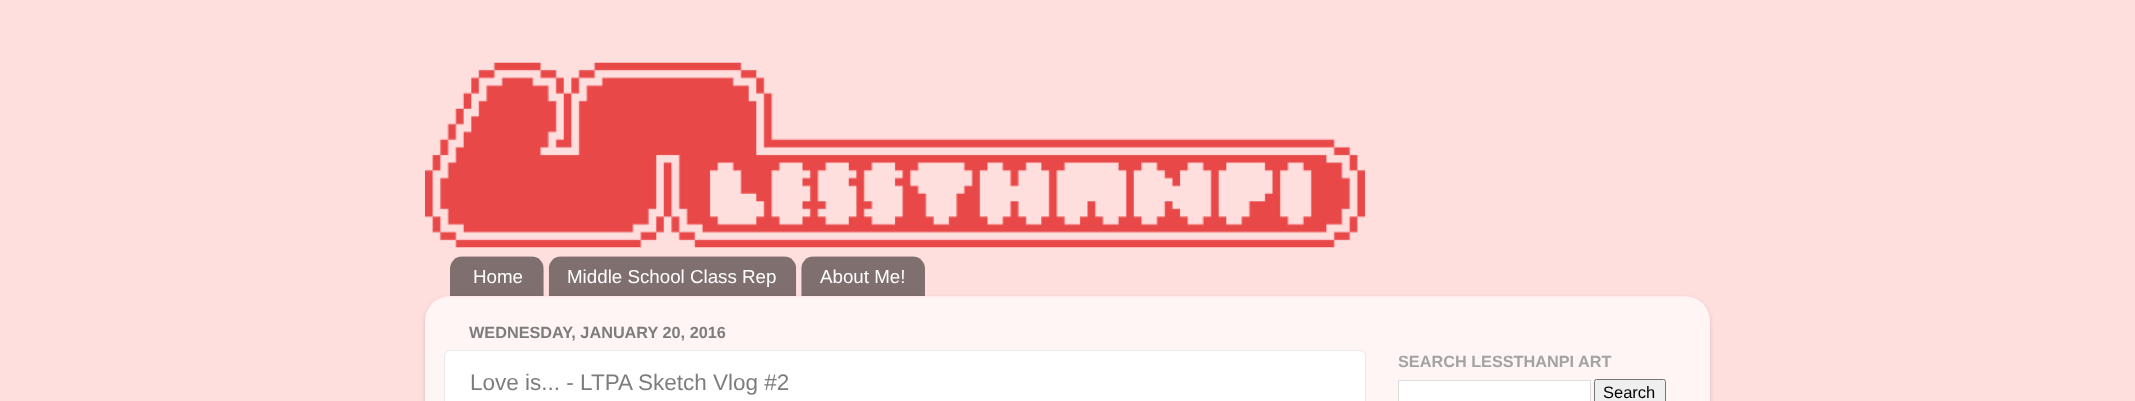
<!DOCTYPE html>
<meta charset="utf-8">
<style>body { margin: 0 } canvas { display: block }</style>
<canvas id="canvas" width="2135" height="401"></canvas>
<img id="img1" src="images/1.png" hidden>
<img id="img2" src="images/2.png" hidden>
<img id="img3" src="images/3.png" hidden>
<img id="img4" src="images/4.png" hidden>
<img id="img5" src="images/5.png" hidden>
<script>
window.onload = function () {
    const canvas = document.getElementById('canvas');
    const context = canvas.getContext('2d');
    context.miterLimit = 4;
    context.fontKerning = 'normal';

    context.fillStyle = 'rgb(255, 222, 222)';
    context.fillRect(0, 0, 2135, 401);
    context.drawImage(document.getElementById('img1'), 425, 62, 940, 186);
    context.drawImage(document.getElementById('img2'), 450, 256, 94, 40);
    context.drawImage(document.getElementById('img3'), 548, 256, 249, 40);
    context.drawImage(document.getElementById('img4'), 801, 256, 124, 40);
    context.save();
    context.beginPath();
    context.moveTo(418, 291);
    context.lineTo(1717, 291);
    context.lineTo(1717, 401);
    context.lineTo(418, 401);
    context.closePath();
    context.moveTo(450, 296);
    context.lineTo(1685, 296);
    context.bezierCurveTo(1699, 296, 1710, 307, 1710, 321);
    context.lineTo(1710, 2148);
    context.lineTo(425, 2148);
    context.lineTo(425, 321);
    context.bezierCurveTo(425, 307, 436, 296, 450, 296);
    context.closePath();
    context.clip('evenodd');
    context.fillStyle = 'rgba(0, 0, 0, 0.15)';
    context.filter = 'blur(2px)';
    context.beginPath();
    context.roundRect(425, 298, 1285, 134, 25);
    context.fill();
    context.filter = 'none';
    context.restore();
    context.drawImage(document.getElementById('img5'), 425, 296, 1285, 105);
    context.fillStyle = 'rgb(255, 255, 255)';
    context.beginPath();
    context.roundRect(444.5, 350.5, 921, 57, 5.5);
    context.fill();
    context.strokeStyle = 'rgb(233, 233, 233)';
    context.stroke();
    context.beginPath();
    context.rect(1398.5, 380.5, 192, 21);
    context.fill();
    context.strokeStyle = 'rgb(221, 221, 221)';
    context.stroke();
    context.fillStyle = 'rgb(239, 239, 239)';
    context.beginPath();
    context.roundRect(1594.5, 379.5, 71, 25, 2);
    context.fill();
    context.strokeStyle = 'rgb(118, 118, 118)';
    context.stroke();
    context.font = '18.75px Liberation Sans';
    context.fillStyle = 'rgb(255, 255, 255)';
    context.fillText('Home', 473, 283);
    context.fillText('Middle School Class Rep', 567, 283);
    context.fillText('About Me!', 820, 283);
    context.font = 'bold 16.25px Liberation Sans';
    context.fillStyle = 'rgb(125, 125, 125)';
    context.fillText('WEDNESDAY, JANUARY 20, 2016', 469, 338);
    context.font = '22.5px Liberation Sans';
    context.fillText('Love is... - LTPA Sketch Vlog #2', 470, 390);
    context.font = 'bold 16.25px Liberation Sans';
    context.fillStyle = 'rgb(163, 163, 163)';
    context.fillText('SEARCH LESSTHANPI ART', 1398, 367);
    context.font = '16.5px Liberation Sans';
    context.fillStyle = 'rgb(0, 0, 0)';
    context.fillText('Search', 1603, 398);
};
</script>
